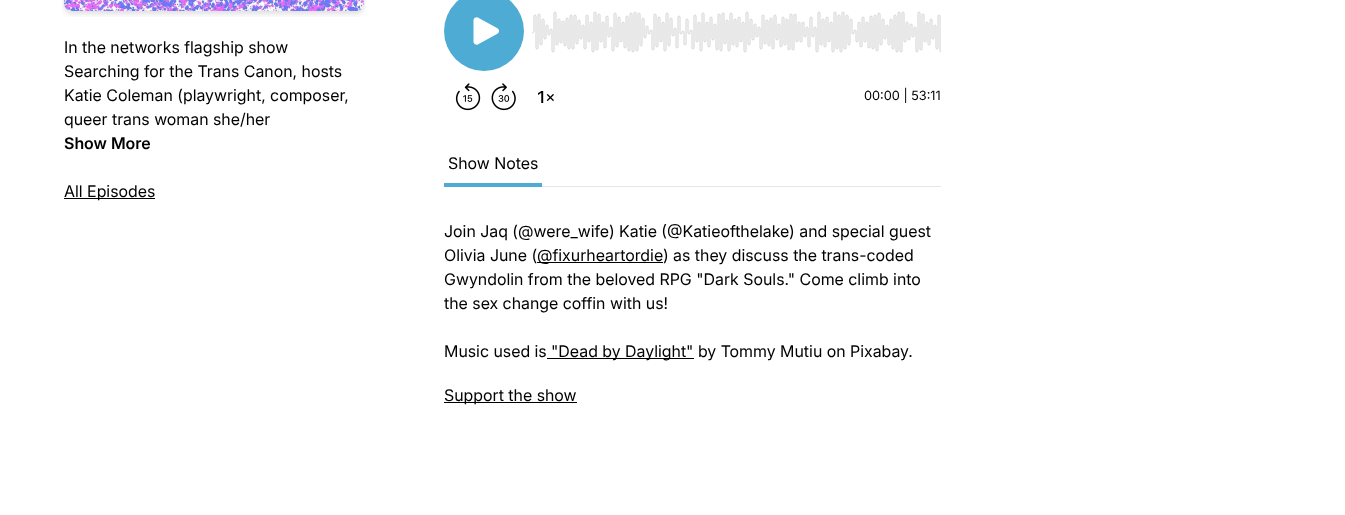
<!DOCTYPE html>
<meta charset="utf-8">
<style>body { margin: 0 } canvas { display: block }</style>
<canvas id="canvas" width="1345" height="515"></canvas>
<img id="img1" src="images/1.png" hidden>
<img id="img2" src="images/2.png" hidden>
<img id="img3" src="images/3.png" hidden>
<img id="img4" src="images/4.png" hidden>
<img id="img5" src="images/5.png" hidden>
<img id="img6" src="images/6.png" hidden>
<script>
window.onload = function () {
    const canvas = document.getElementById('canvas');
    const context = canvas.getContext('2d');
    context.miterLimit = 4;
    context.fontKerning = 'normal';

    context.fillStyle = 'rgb(255, 255, 255)';
    context.fillRect(0, 0, 1345, 515);
    context.drawImage(document.getElementById('img1'), 62, 0, 304, 17);
    context.fillStyle = 'rgb(0, 0, 0)';
    context.fillRect(64, 198, 91, 1);
    context.drawImage(document.getElementById('img2'), 455, 83, 26, 28);
    context.drawImage(document.getElementById('img3'), 491, 83, 25, 28);
    context.drawImage(document.getElementById('img4'), 538, 91, 16, 12);
    context.fillStyle = 'rgb(78, 172, 212)';
    context.beginPath();
    context.arc(484, 31, 40, 0, 2 * Math.PI);
    context.fill();
    context.drawImage(document.getElementById('img5'), 473, 17, 26, 28);
    context.drawImage(document.getElementById('img6'), 532, 11, 409, 42);
    context.fillStyle = 'rgb(228, 229, 230)';
    context.fillRect(542, 186, 399, 1);
    context.fillStyle = 'rgb(78, 172, 212)';
    context.fillRect(444, 183, 98, 4);
    context.fillStyle = 'rgb(0, 0, 0)';
    context.fillRect(537, 262, 126, 1);
    context.fillRect(547, 358, 147, 1);
    context.fillRect(444, 402, 133, 1);
    context.font = '16px Inter';
    context.fillText('In the networks flagship show', 64, 53);
    context.fillText('Searching for the Trans Canon, hosts', 64, 77);
    context.fillText('Katie Coleman (playwright, composer,', 64, 101);
    context.fillText('queer trans woman she/her', 64, 125);
    context.font = '600 16px Inter';
    context.fillText('Show More', 64, 149);
    context.font = '16px Inter';
    context.fillText('All Episodes', 64, 197);
    context.font = '12.75px "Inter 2"';
    context.fillText('00:00 | 53:11', 864, 100);
    context.font = '16px Inter';
    context.fillText('Show Notes', 448, 169);
    context.fillText('Join Jaq (@were_wife) Katie (@Katieofthelake) and special guest', 444, 237);
    context.fillText('Olivia June (', 444, 261);
    context.fillText('@fixurheartordie) as they discuss the trans-coded', 537, 261);
    context.fillText('Gwyndolin from the beloved RPG "Dark Souls." Come climb into', 444, 285);
    context.fillText('the sex change coffin with us!', 444, 309);
    context.fillText('Music used is', 444, 357);
    context.fillText('"Dead by Daylight" by Tommy Mutiu on Pixabay.', 551, 357);
    context.fillText('Support the show', 444, 401);
};
</script>
